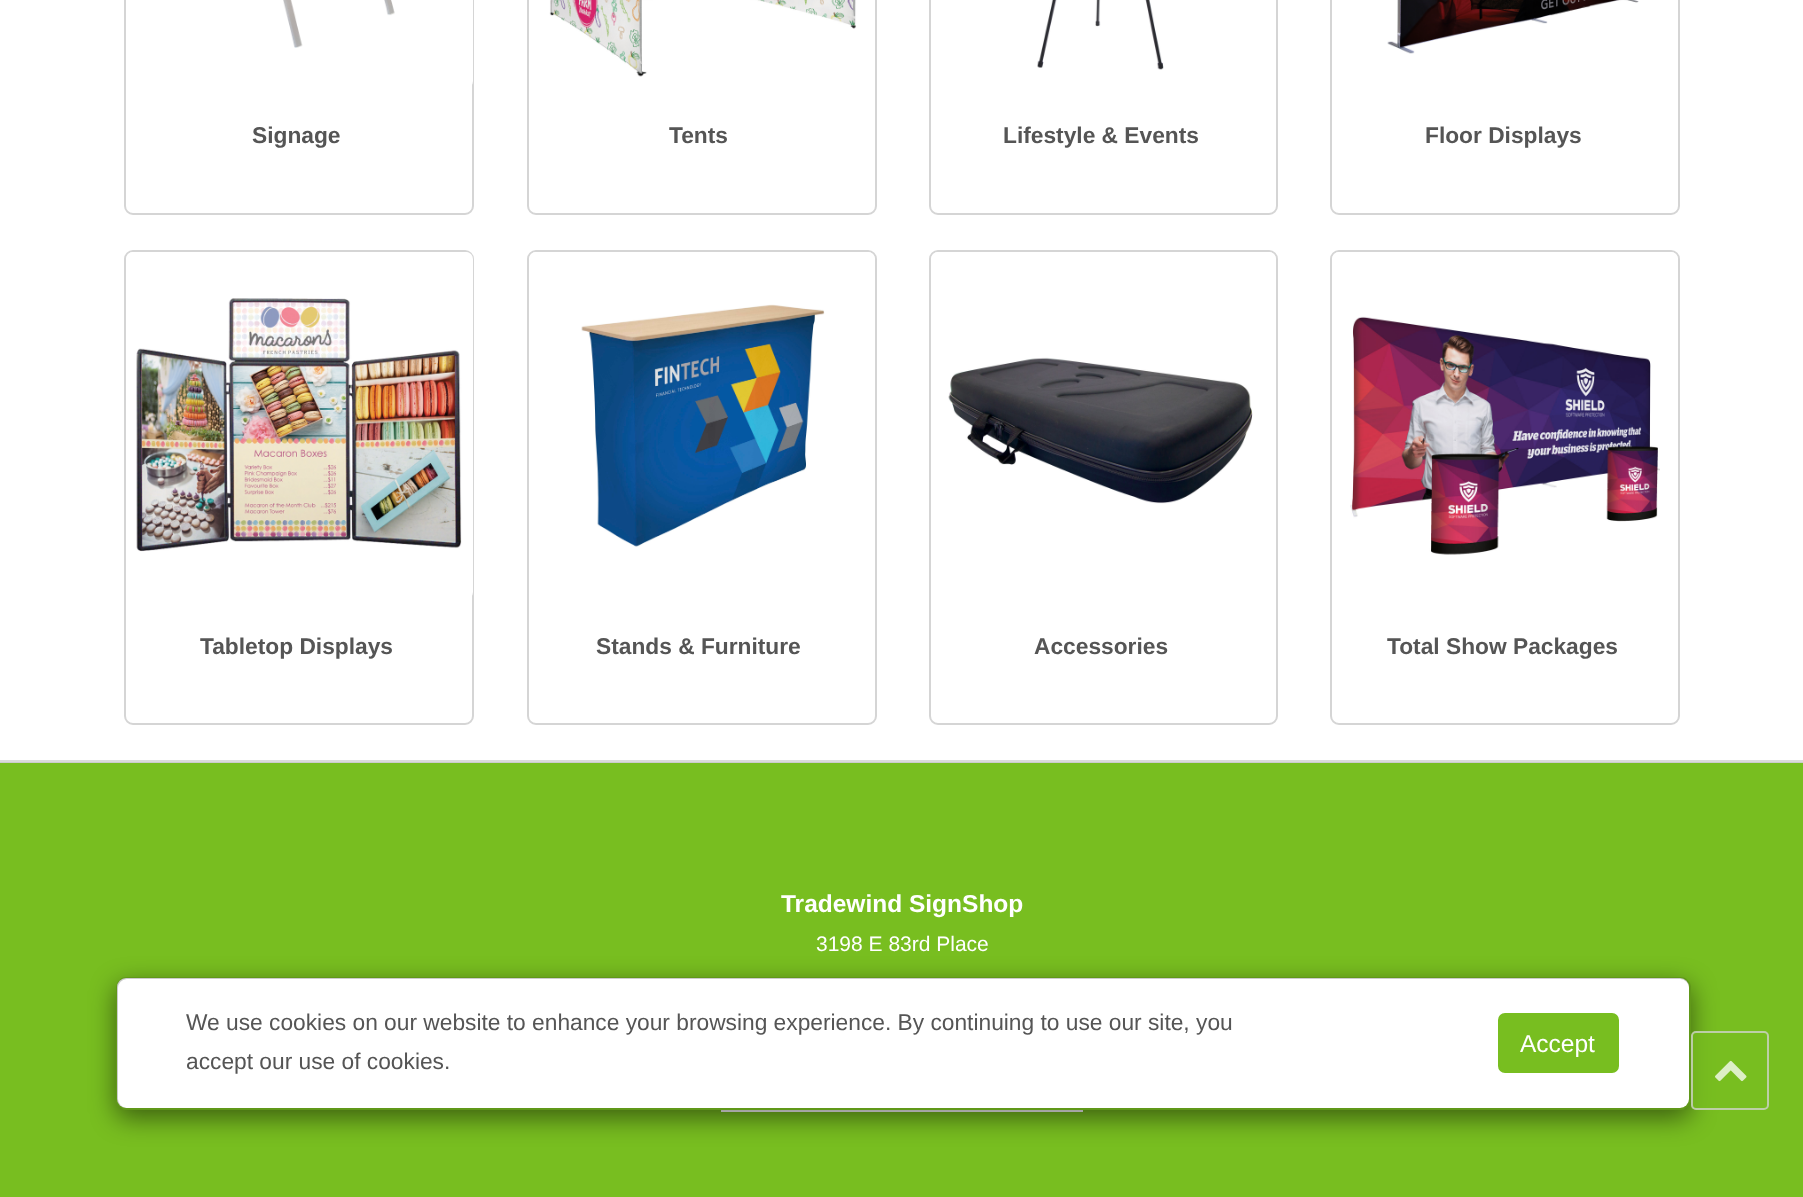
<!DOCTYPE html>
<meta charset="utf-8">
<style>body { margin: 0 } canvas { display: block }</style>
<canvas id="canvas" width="1803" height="1197"></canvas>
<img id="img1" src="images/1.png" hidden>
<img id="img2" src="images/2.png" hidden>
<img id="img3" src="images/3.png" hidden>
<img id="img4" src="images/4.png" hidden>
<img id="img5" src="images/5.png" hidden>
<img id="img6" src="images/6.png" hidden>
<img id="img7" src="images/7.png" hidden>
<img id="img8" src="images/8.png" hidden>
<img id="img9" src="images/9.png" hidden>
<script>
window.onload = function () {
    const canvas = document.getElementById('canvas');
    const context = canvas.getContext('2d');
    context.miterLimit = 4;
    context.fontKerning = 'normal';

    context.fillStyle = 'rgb(255, 255, 255)';
    context.fillRect(0, 0, 1803, 1197);
    context.beginPath();
    context.roundRect(125, -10, 348, 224, 8);
    context.strokeStyle = 'rgb(213, 213, 213)';
    context.lineWidth = 2;
    context.stroke();
    context.beginPath();
    context.roundRect(126, -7, 347, 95, 7);
    context.fill();
    context.drawImage(document.getElementById('img1'), 283, 0, 112, 48);
    context.beginPath();
    context.roundRect(528, -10, 348, 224, 8);
    context.stroke();
    context.drawImage(document.getElementById('img2'), 549, 0, 308, 77);
    context.beginPath();
    context.roundRect(930, -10, 347, 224, 8);
    context.stroke();
    context.drawImage(document.getElementById('img3'), 1037, 0, 127, 70);
    context.beginPath();
    context.roundRect(1331, -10, 348, 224, 8);
    context.stroke();
    context.drawImage(document.getElementById('img4'), 1387, 0, 252, 54);
    context.beginPath();
    context.roundRect(125, 251, 348, 473, 8);
    context.stroke();
    context.beginPath();
    context.roundRect(126, 252, 347, 347, 7);
    context.fill();
    context.drawImage(document.getElementById('img5'), 136, 298, 326, 254);
    context.beginPath();
    context.roundRect(528, 251, 348, 473, 8);
    context.stroke();
    context.beginPath();
    context.roundRect(529, 252, 346, 347, 7);
    context.fill();
    context.drawImage(document.getElementById('img6'), 581, 304, 244, 243);
    context.beginPath();
    context.roundRect(930, 251, 347, 473, 8);
    context.stroke();
    context.beginPath();
    context.roundRect(931, 252, 345, 347, 7);
    context.fill();
    context.drawImage(document.getElementById('img7'), 948, 357, 305, 147);
    context.beginPath();
    context.roundRect(1331, 251, 348, 473, 8);
    context.stroke();
    context.beginPath();
    context.roundRect(1332, 252, 346, 347, 7);
    context.fill();
    context.drawImage(document.getElementById('img8'), 1350, 316, 310, 239);
    context.fillStyle = 'rgb(120, 190, 32)';
    context.fillRect(0, 763, 1803, 434);
    context.fillStyle = 'rgb(204, 204, 204)';
    context.fillRect(0, 762, 1803, 1);
    context.fillStyle = 'rgb(219, 219, 219)';
    context.fillRect(0, 760, 1803, 2);
    context.fillStyle = 'rgb(255, 255, 255)';
    context.fillRect(721, 1110, 362, 2);
    context.save();
    context.beginPath();
    context.moveTo(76, 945);
    context.lineTo(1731, 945);
    context.lineTo(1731, 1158);
    context.lineTo(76, 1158);
    context.closePath();
    context.moveTo(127, 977);
    context.lineTo(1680, 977);
    context.bezierCurveTo(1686, 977, 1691, 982, 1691, 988);
    context.lineTo(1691, 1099);
    context.bezierCurveTo(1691, 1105, 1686, 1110, 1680, 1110);
    context.lineTo(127, 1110);
    context.bezierCurveTo(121, 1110, 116, 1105, 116, 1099);
    context.lineTo(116, 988);
    context.bezierCurveTo(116, 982, 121, 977, 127, 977);
    context.closePath();
    context.clip('evenodd');
    context.fillStyle = 'rgba(0, 0, 0, 0.5)';
    context.filter = 'blur(13px)';
    context.beginPath();
    context.roundRect(116, 985, 1575, 133, 11);
    context.fill();
    context.filter = 'none';
    context.restore();
    context.beginPath();
    context.roundRect(117, 978, 1572, 130, 9);
    context.fill();
    context.beginPath();
    context.roundRect(117, 978, 1573, 131, 10);
    context.strokeStyle = 'rgba(0, 0, 0, 0.2)';
    context.stroke();
    context.fillStyle = 'rgb(120, 190, 32)';
    context.beginPath();
    context.roundRect(1499, 1014, 119, 58, 6);
    context.fill();
    context.strokeStyle = 'rgb(120, 190, 32)';
    context.stroke();
    context.fillStyle = 'rgba(120, 190, 32, 0.75)';
    context.beginPath();
    context.roundRect(1691, 1031, 78, 79, 5);
    context.fill();
    context.beginPath();
    context.roundRect(1692, 1032, 76, 77, 4);
    context.strokeStyle = 'rgba(212, 212, 212, 0.75)';
    context.stroke();
    context.drawImage(document.getElementById('img9'), 1715, 1060, 32, 22);
    context.font = 'bold 22.75px Liberation Sans';
    context.fillStyle = 'rgb(85, 85, 85)';
    context.fillText('Signage', 252, 143);
    context.fillText('Tents', 669, 143);
    context.fillText('Lifestyle & Events', 1003, 143);
    context.fillText('Floor Displays', 1425, 143);
    context.fillText('Tabletop Displays', 200, 654);
    context.fillText('Stands & Furniture', 596, 654);
    context.fillText('Accessories', 1034, 654);
    context.fillText('Total Show Packages', 1387, 654);
    context.font = 'bold 24.5px Liberation Sans';
    context.fillStyle = 'rgb(255, 255, 255)';
    context.fillText('Tradewind SignShop', 781, 912);
    context.font = '21px Liberation Sans';
    context.fillText('3198 E 83rd Place', 816, 951);
    context.font = '22.75px Liberation Sans';
    context.fillStyle = 'rgb(85, 85, 85)';
    context.fillText('We use cookies on our website to enhance your browsing experience. By continuing to use our site, you', 186, 1030);
    context.fillText('accept our use of cookies.', 186, 1069);
    context.font = '24.5px Liberation Sans';
    context.fillStyle = 'rgb(255, 255, 255)';
    context.fillText('Accept', 1520, 1052);
};
</script>
